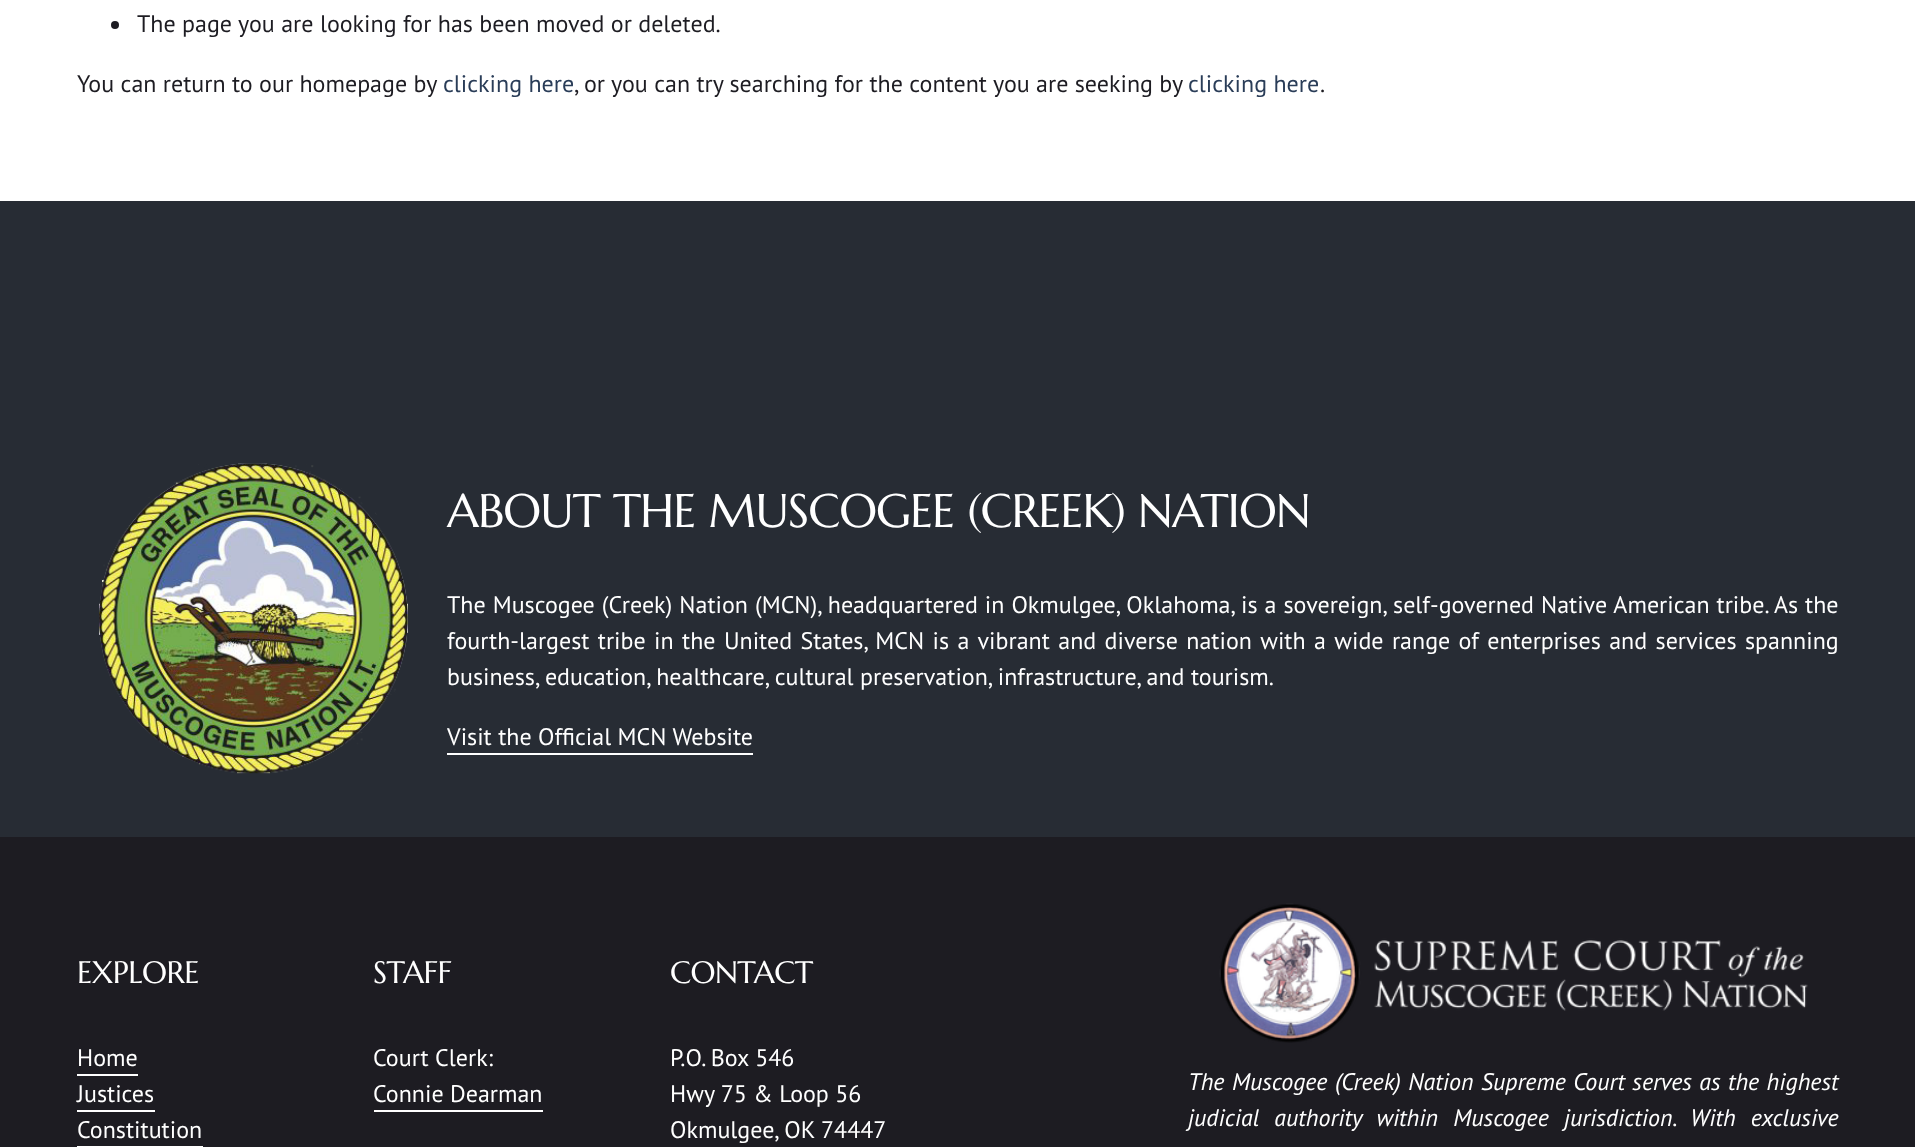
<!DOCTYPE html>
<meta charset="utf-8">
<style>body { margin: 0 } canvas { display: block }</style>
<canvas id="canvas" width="1915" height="1147"></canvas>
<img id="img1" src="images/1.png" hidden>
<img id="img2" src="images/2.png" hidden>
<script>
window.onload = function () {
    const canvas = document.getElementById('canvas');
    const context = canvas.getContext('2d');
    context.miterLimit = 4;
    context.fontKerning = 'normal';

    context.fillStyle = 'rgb(255, 255, 255)';
    context.fillRect(0, 0, 1915, 1147);
    context.fillStyle = 'rgb(29, 28, 34)';
    context.beginPath();
    context.arc(115, 25, 4, 0, 2 * Math.PI);
    context.fill();
    context.fillStyle = 'rgb(39, 44, 52)';
    context.fillRect(0, 201, 1915, 636);
    context.drawImage(document.getElementById('img1'), 99, 463, 309, 311);
    context.fillStyle = 'rgb(255, 255, 255)';
    context.fillRect(447, 753, 306, 2);
    context.fillStyle = 'rgb(29, 28, 34)';
    context.fillRect(0, 837, 1915, 310);
    context.fillStyle = 'rgb(255, 255, 255)';
    context.fillRect(77, 1074, 61, 2);
    context.fillRect(77, 1110, 78, 2);
    context.fillRect(77, 1146, 126, 1);
    context.fillRect(374, 1110, 169, 2);
    context.drawImage(document.getElementById('img2'), 1219, 903, 589, 140);
    context.font = '24px PT Sans';
    context.fillStyle = 'rgb(29, 28, 34)';
    context.fillText('The page you are looking for has been moved or deleted.', 137, 32);
    context.fillText('You can return to our homepage by', 77, 92);
    context.fillStyle = 'rgb(42, 61, 88)';
    context.fillText('clicking here', 443, 92);
    context.fillStyle = 'rgb(29, 28, 34)';
    context.fillText(', or you can try searching for the content you are seeking by', 574, 92);
    context.fillStyle = 'rgb(42, 61, 88)';
    context.fillText('clicking here', 1188, 92);
    context.fillStyle = 'rgb(29, 28, 34)';
    context.fillText('.', 1320, 92);
    context.letterSpacing = '-0.95px';
    context.font = '47px Marcellus';
    context.fillStyle = 'rgb(255, 255, 255)';
    context.fillText('ABOUT THE MUSCOGEE (CREEK) NATION', 447, 527);
    context.letterSpacing = '0px';
    context.wordSpacing = '0.6px';
    context.font = '24px PT Sans';
    context.fillText('The Muscogee (Creek) Nation (MCN), headquartered in Okmulgee, Oklahoma, is a sovereign, self-governed Native American tribe. As the', 447, 613);
    context.wordSpacing = '2px';
    context.fillText('fourth-largest tribe in the United States, MCN is a vibrant and diverse nation with a wide range of enterprises and services spanning', 447, 649);
    context.wordSpacing = '0px';
    context.fillText('business, education, healthcare, cultural preservation, infrastructure, and tourism.', 447, 685);
    context.fillText('Visit the Official MCN Website', 447, 745);
    context.letterSpacing = '-0.5px';
    context.font = '31px Marcellus';
    context.fillText('EXPLORE', 77, 983);
    context.letterSpacing = '0px';
    context.font = '24px PT Sans';
    context.fillText('Home', 77, 1066);
    context.fillText('Justices', 77, 1102);
    context.fillText('Constitution', 77, 1138);
    context.letterSpacing = '-0.5px';
    context.font = '31px Marcellus';
    context.fillText('STAFF', 373, 983);
    context.letterSpacing = '0px';
    context.font = '24px PT Sans';
    context.fillText('Court Clerk:', 373, 1066);
    context.fillText('Connie Dearman', 373, 1102);
    context.letterSpacing = '-0.5px';
    context.font = '31px Marcellus';
    context.fillText('CONTACT', 670, 983);
    context.letterSpacing = '0px';
    context.font = '24px PT Sans';
    context.fillText('P.O. Box 546', 670, 1066);
    context.fillText('Hwy 75 & Loop 56', 670, 1102);
    context.fillText('Okmulgee, OK 74447', 670, 1138);
    context.wordSpacing = '1px';
    context.font = 'italic 24px PT Sans';
    context.fillText('The Muscogee (Creek) Nation Supreme Court serves as the highest', 1188, 1090);
    context.wordSpacing = '8.75px';
    context.fillText('judicial authority within Muscogee jurisdiction. With exclusive', 1188, 1126);
};
</script>
